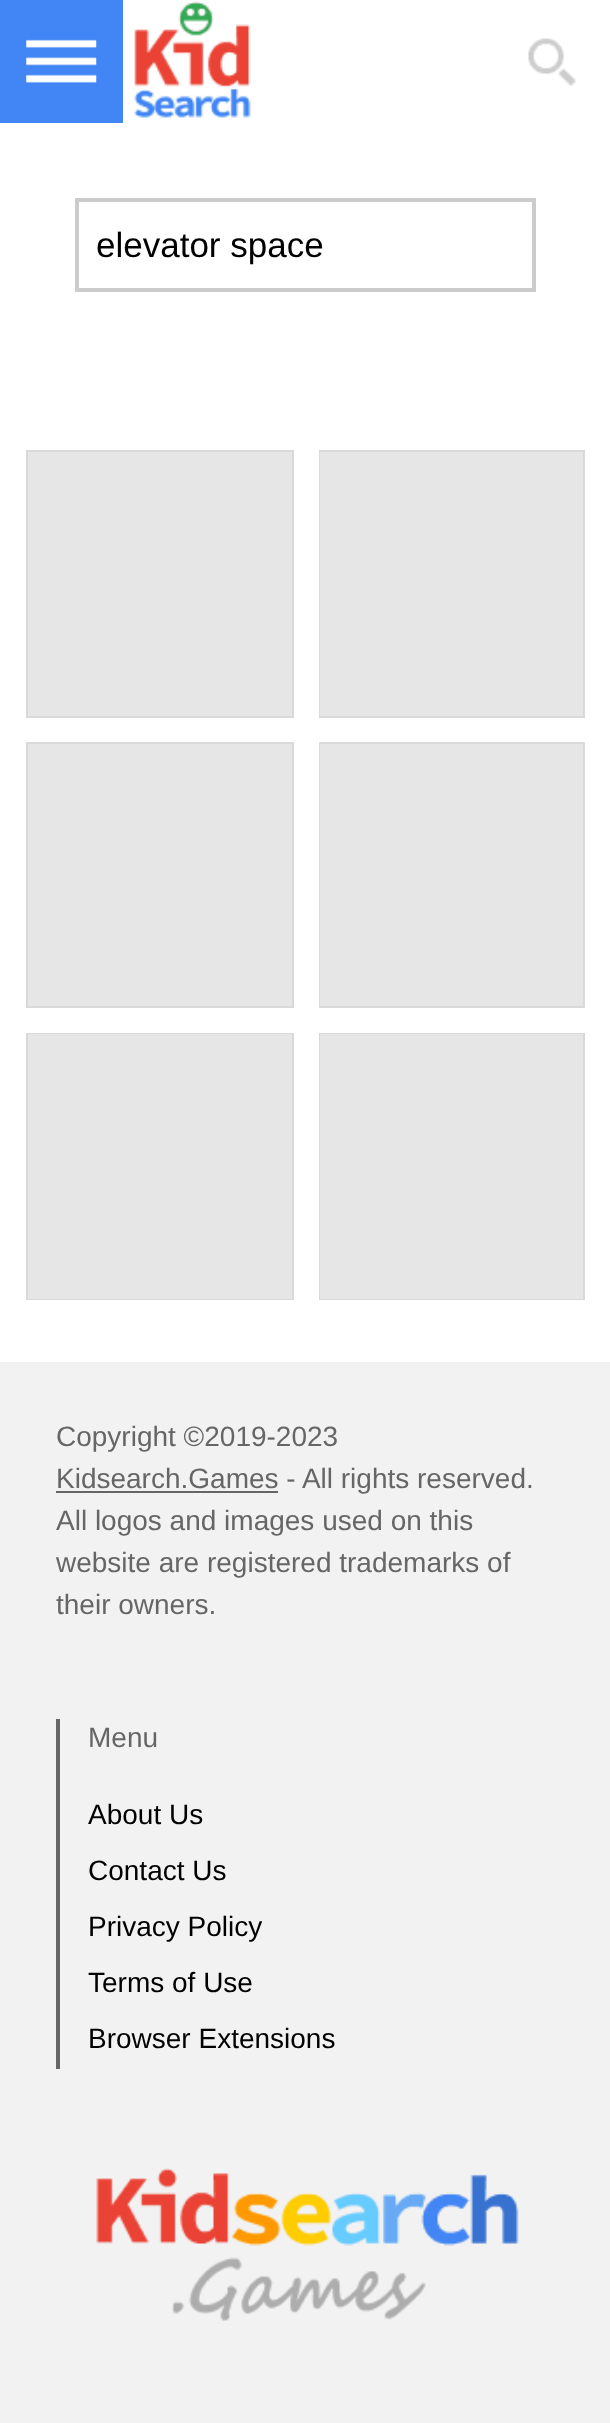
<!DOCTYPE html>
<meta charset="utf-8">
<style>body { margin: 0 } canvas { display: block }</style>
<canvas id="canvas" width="610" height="2423"></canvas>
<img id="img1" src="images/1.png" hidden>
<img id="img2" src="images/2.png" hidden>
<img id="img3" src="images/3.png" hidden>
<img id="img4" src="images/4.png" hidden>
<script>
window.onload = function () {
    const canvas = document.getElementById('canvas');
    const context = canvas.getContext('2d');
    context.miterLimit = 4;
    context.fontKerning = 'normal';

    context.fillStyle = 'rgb(255, 255, 255)';
    context.fillRect(0, 0, 610, 2423);
    context.fillStyle = 'rgb(66, 133, 244)';
    context.fillRect(0, 0, 123, 123);
    context.drawImage(document.getElementById('img1'), 26, 39, 71, 44);
    context.drawImage(document.getElementById('img2'), 134, 1, 117, 117);
    context.drawImage(document.getElementById('img3'), 528, 38, 48, 48);
    context.strokeStyle = 'rgb(204, 204, 204)';
    context.lineWidth = 4;
    context.strokeRect(77, 200, 457, 90);
    context.strokeStyle = 'rgb(217, 217, 217)';
    context.lineWidth = 2;
    context.strokeRect(27, 451, 266, 266);
    context.fillStyle = 'rgb(230, 230, 230)';
    context.fillRect(28, 452, 264, 264);
    context.strokeRect(320, 451, 264, 266);
    context.fillRect(320, 452, 263, 264);
    context.strokeRect(27, 743, 266, 264);
    context.fillRect(28, 744, 264, 262);
    context.strokeRect(320, 743, 264, 264);
    context.fillRect(320, 744, 263, 262);
    context.strokeRect(27, 1034, 266, 265);
    context.fillRect(28, 1034, 264, 265);
    context.strokeRect(320, 1034, 264, 265);
    context.fillRect(320, 1034, 263, 265);
    context.fillStyle = 'rgb(242, 242, 242)';
    context.fillRect(0, 1362, 610, 1061);
    context.fillStyle = 'rgb(102, 102, 102)';
    context.fillRect(56, 1491, 222, 2);
    context.fillRect(56, 1719, 4, 350);
    context.drawImage(document.getElementById('img4'), 96, 2168, 423, 153);
    context.font = '35px Liberation Sans';
    context.fillStyle = 'rgb(0, 0, 0)';
    context.fillText('elevator space', 96, 257);
    context.font = '28px Liberation Sans';
    context.fillStyle = 'rgb(102, 102, 102)';
    context.fillText('Copyright ©2019-2023', 56, 1446);
    context.fillText('Kidsearch.Games - All rights reserved.', 56, 1488);
    context.fillText('All logos and images used on this', 56, 1530);
    context.fillText('website are registered trademarks of', 56, 1572);
    context.fillText('their owners.', 56, 1614);
    context.fillText('Menu', 88, 1747);
    context.fillStyle = 'rgb(0, 0, 0)';
    context.fillText('About Us', 88, 1824);
    context.fillText('Contact Us', 88, 1880);
    context.fillText('Privacy Policy', 88, 1936);
    context.fillText('Terms of Use', 88, 1992);
    context.fillText('Browser Extensions', 88, 2048);
};
</script>
